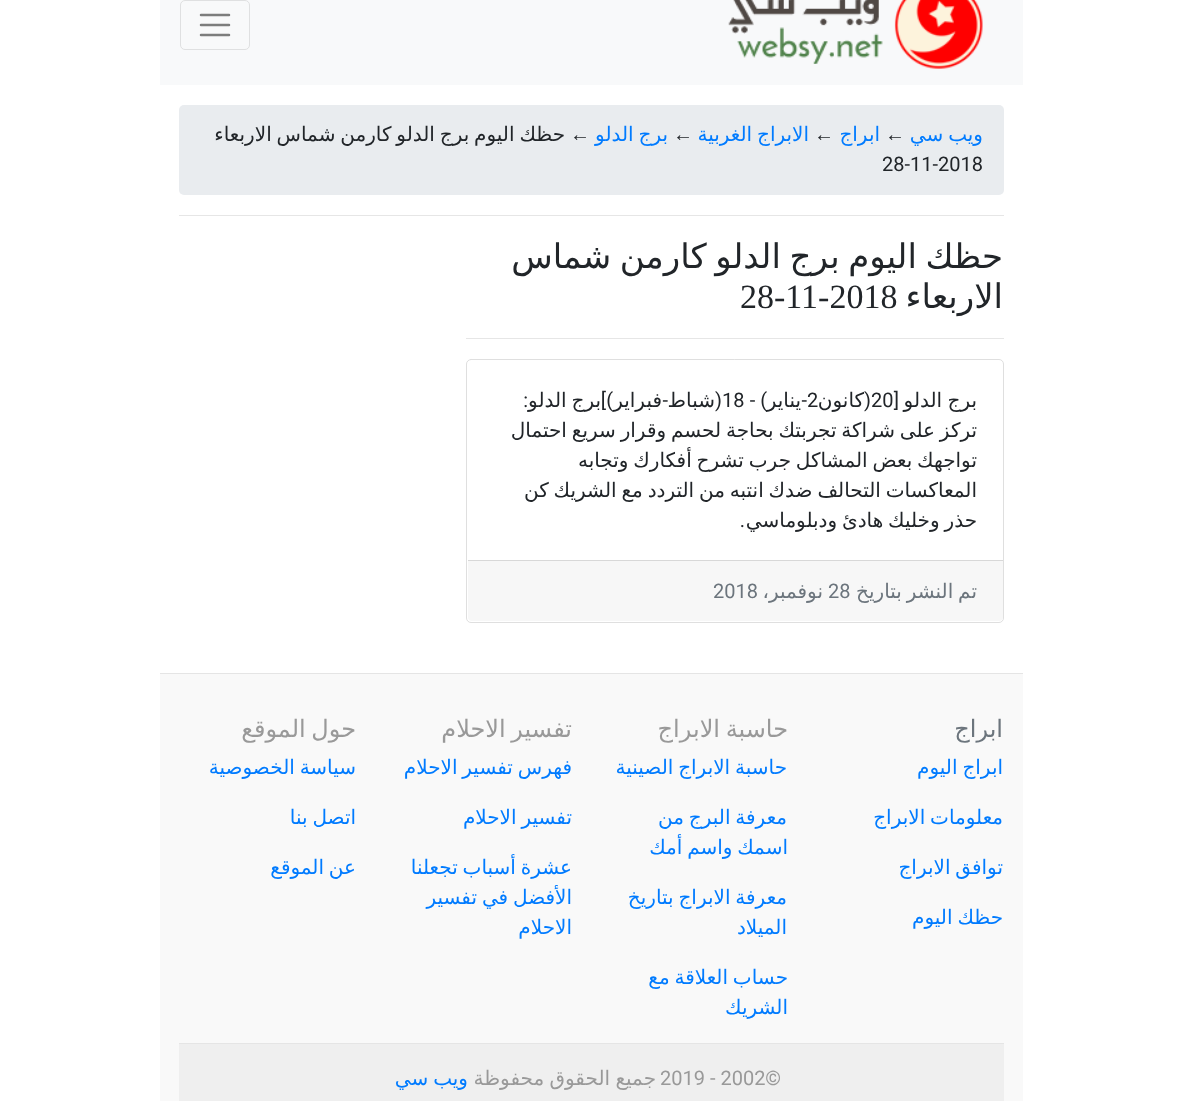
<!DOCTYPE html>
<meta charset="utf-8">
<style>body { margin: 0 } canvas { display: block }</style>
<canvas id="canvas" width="1181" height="1101"></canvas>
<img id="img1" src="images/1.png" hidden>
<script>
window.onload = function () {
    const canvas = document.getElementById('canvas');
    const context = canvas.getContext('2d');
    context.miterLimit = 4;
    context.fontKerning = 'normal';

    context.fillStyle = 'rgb(255, 255, 255)';
    context.fillRect(0, 0, 1181, 1101);
    context.fillStyle = 'rgb(248, 249, 250)';
    context.fillRect(160, 0, 863, 85);
    context.drawImage(document.getElementById('img1'), 728, 0, 255, 69);
    context.beginPath();
    context.roundRect(180.5, 0.5, 69, 49, 4.5);
    context.strokeStyle = 'rgb(223, 224, 225)';
    context.stroke();
    context.beginPath();
    context.moveTo(201, 15);
    context.lineTo(229, 15);
    context.moveTo(201, 25);
    context.lineTo(229, 25);
    context.moveTo(201, 35);
    context.lineTo(229, 35);
    context.strokeStyle = 'rgb(124, 125, 125)';
    context.lineWidth = 2.5;
    context.lineCap = 'round';
    context.stroke();
    context.fillStyle = 'rgb(233, 236, 239)';
    context.beginPath();
    context.roundRect(179, 105, 825, 90, 5);
    context.fill();
    context.fillStyle = 'rgb(230, 230, 230)';
    context.fillRect(179, 215, 825, 1);
    context.fillRect(466, 338, 538, 1);
    context.beginPath();
    context.roundRect(466.5, 359.5, 537, 263, 4.5);
    context.strokeStyle = 'rgb(223, 223, 223)';
    context.lineWidth = 1;
    context.stroke();
    context.fillStyle = 'rgb(247, 247, 247)';
    context.beginPath();
    context.roundRect(468, 560, 535, 61, [0, 0, 4, 4]);
    context.fill();
    context.fillStyle = 'rgb(216, 216, 216)';
    context.fillRect(468, 560, 535, 1);
    context.fillStyle = 'rgb(249, 249, 249)';
    context.fillRect(160, 674, 863, 427);
    context.fillStyle = 'rgb(229, 229, 229)';
    context.fillRect(160, 673, 863, 1);
    context.fillStyle = 'rgb(239, 239, 239)';
    context.fillRect(179, 1044, 825, 57);
    context.fillStyle = 'rgb(229, 229, 229)';
    context.fillRect(179, 1043, 825, 1);
    context.wordSpacing = '-1.5px';
    context.direction = 'rtl';
    context.font = '20px DejaVu Sans';
    context.fillStyle = 'rgb(0, 123, 255)';
    context.fillText('ويب سي', 983, 141);
    context.wordSpacing = '0px';
    context.direction = 'ltr';
    context.font = '20px Liberation Sans';
    context.fillStyle = 'rgb(33, 37, 41)';
    context.fillText('←', 885, 141);
    context.direction = 'rtl';
    context.font = '20px DejaVu Sans';
    context.fillStyle = 'rgb(0, 123, 255)';
    context.fillText('ابراج', 880, 141);
    context.direction = 'ltr';
    context.font = '20px Liberation Sans';
    context.fillStyle = 'rgb(33, 37, 41)';
    context.fillText('←', 814, 141);
    context.wordSpacing = '-1.5px';
    context.direction = 'rtl';
    context.font = '20px DejaVu Sans';
    context.fillStyle = 'rgb(0, 123, 255)';
    context.fillText('الابراج الغربية', 809, 141);
    context.wordSpacing = '0px';
    context.direction = 'ltr';
    context.font = '20px Liberation Sans';
    context.fillStyle = 'rgb(33, 37, 41)';
    context.fillText('←', 673, 141);
    context.wordSpacing = '-1.5px';
    context.direction = 'rtl';
    context.font = '20px DejaVu Sans';
    context.fillStyle = 'rgb(0, 123, 255)';
    context.fillText('برج الدلو', 668, 141);
    context.wordSpacing = '0px';
    context.direction = 'ltr';
    context.font = '20px Liberation Sans';
    context.fillStyle = 'rgb(33, 37, 41)';
    context.fillText('←', 570, 141);
    context.wordSpacing = '-1.5px';
    context.direction = 'rtl';
    context.font = '20px DejaVu Sans';
    context.fillText('حظك اليوم برج الدلو كارمن شماس الاربعاء', 565, 141);
    context.wordSpacing = '0px';
    context.direction = 'ltr';
    context.font = '20px Roboto';
    context.fillText('28-11-2018', 882, 171);
    context.wordSpacing = '-2.25px';
    context.direction = 'rtl';
    context.font = '34px DejaVu Sans';
    context.fillText('حظك اليوم برج الدلو كارمن شماس', 1003, 268);
    context.wordSpacing = '0px';
    context.fillText('الاربعاء', 1003, 308);
    context.direction = 'ltr';
    context.font = '34px Liberation Serif';
    context.fillText('28-11-2018', 740, 308);
    context.wordSpacing = '-1px';
    context.direction = 'rtl';
    context.font = '20px DejaVu Sans';
    context.fillText('برج الدلو', 977, 407);
    context.wordSpacing = '0px';
    context.font = '20px Roboto';
    context.fillText('[', 899, 407);
    context.direction = 'ltr';
    context.fillText('20', 871, 407);
    context.direction = 'rtl';
    context.fillText('(', 871, 407);
    context.font = '20px DejaVu Sans';
    context.fillText('كانون', 864, 407);
    context.direction = 'ltr';
    context.font = '20px Roboto';
    context.fillText('2', 807, 407);
    context.direction = 'rtl';
    context.fillText('-', 807, 407);
    context.fillText(') -', 767, 407);
    context.font = '20px DejaVu Sans';
    context.fillText('يناير', 801, 407);
    context.direction = 'ltr';
    context.font = '20px Roboto';
    context.fillText('18', 722, 407);
    context.direction = 'rtl';
    context.fillText('(', 722, 407);
    context.font = '20px DejaVu Sans';
    context.fillText('شباط', 715, 407);
    context.font = '20px Roboto';
    context.fillText('-', 668, 407);
    context.font = '20px DejaVu Sans';
    context.fillText('فبراير', 662, 407);
    context.font = '20px Roboto';
    context.fillText(')]', 613, 407);
    context.wordSpacing = '-1.5px';
    context.font = '20px DejaVu Sans';
    context.fillText('برج الدلو', 601, 407);
    context.wordSpacing = '0px';
    context.font = '20px Roboto';
    context.fillText(':', 528, 407);
    context.wordSpacing = '-1.5px';
    context.font = '20px DejaVu Sans';
    context.fillText('تركز على شراكة تجربتك بحاجة لحسم وقرار سريع احتمال', 977, 437);
    context.fillText('تواجهك بعض المشاكل جرب تشرح أفكارك وتجابه', 977, 467);
    context.fillText('المعاكسات التحالف ضدك انتبه من التردد مع الشريك كن', 977, 497);
    context.fillText('حذر وخليك هادئ ودبلوماسي', 977, 527);
    context.wordSpacing = '0px';
    context.font = '20px Roboto';
    context.fillText('.', 745, 527);
    context.wordSpacing = '-1.5px';
    context.font = '20px DejaVu Sans';
    context.fillStyle = 'rgb(108, 117, 125)';
    context.fillText('تم النشر بتاريخ', 977, 598);
    context.wordSpacing = '0px';
    context.direction = 'ltr';
    context.font = '20px Roboto';
    context.fillText('28', 828, 598);
    context.direction = 'rtl';
    context.font = '20px DejaVu Sans';
    context.fillText('نوفمبر،', 823, 598);
    context.direction = 'ltr';
    context.font = '20px Roboto';
    context.fillText('2018', 713, 598);
    context.direction = 'rtl';
    context.font = '24px DejaVu Sans';
    context.fillText('ابراج', 1003, 737);
    context.wordSpacing = '-1.5px';
    context.font = '20px DejaVu Sans';
    context.fillStyle = 'rgb(0, 123, 255)';
    context.fillText('ابراج اليوم', 1003, 774);
    context.fillText('معلومات الابراج', 1003, 824);
    context.fillText('توافق الابراج', 1003, 874);
    context.fillText('حظك اليوم', 1003, 924);
    context.wordSpacing = '-2px';
    context.font = '24px DejaVu Sans';
    context.fillStyle = 'rgb(153, 153, 153)';
    context.fillText('حاسبة الابراج', 788, 737);
    context.wordSpacing = '-1.5px';
    context.font = '20px DejaVu Sans';
    context.fillStyle = 'rgb(0, 123, 255)';
    context.fillText('حاسبة الابراج الصينية', 787, 774);
    context.fillText('معرفة البرج من', 787, 824);
    context.fillText('اسمك واسم أمك', 788, 854);
    context.fillText('معرفة الابراج بتاريخ', 787, 904);
    context.wordSpacing = '0px';
    context.fillText('الميلاد', 787, 934);
    context.wordSpacing = '-1.5px';
    context.fillText('حساب العلاقة مع', 788, 984);
    context.wordSpacing = '0px';
    context.fillText('الشريك', 788, 1014);
    context.wordSpacing = '-2px';
    context.font = '24px DejaVu Sans';
    context.fillStyle = 'rgb(153, 153, 153)';
    context.fillText('تفسير الاحلام', 572, 737);
    context.wordSpacing = '-1.5px';
    context.font = '20px DejaVu Sans';
    context.fillStyle = 'rgb(0, 123, 255)';
    context.fillText('فهرس تفسير الاحلام', 572, 774);
    context.fillText('تفسير الاحلام', 572, 824);
    context.fillText('عشرة أسباب تجعلنا', 572, 874);
    context.fillText('الأفضل في تفسير', 572, 904);
    context.wordSpacing = '0px';
    context.fillText('الاحلام', 572, 934);
    context.wordSpacing = '-2px';
    context.font = '24px DejaVu Sans';
    context.fillStyle = 'rgb(153, 153, 153)';
    context.fillText('حول الموقع', 356, 737);
    context.wordSpacing = '-1.5px';
    context.font = '20px DejaVu Sans';
    context.fillStyle = 'rgb(0, 123, 255)';
    context.fillText('سياسة الخصوصية', 356, 774);
    context.fillText('اتصل بنا', 356, 824);
    context.fillText('عن الموقع', 356, 874);
    context.wordSpacing = '0px';
    context.direction = 'ltr';
    context.font = '20px Roboto';
    context.fillStyle = 'rgb(153, 153, 153)';
    context.fillText('2019 - 2002©', 660, 1085);
    context.wordSpacing = '-1px';
    context.direction = 'rtl';
    context.font = '20px DejaVu Sans';
    context.fillText('جميع الحقوق محفوظة', 656, 1085);
    context.wordSpacing = '-1.5px';
    context.fillStyle = 'rgb(0, 123, 255)';
    context.fillText('ويب سي', 468, 1085);
};
</script>
